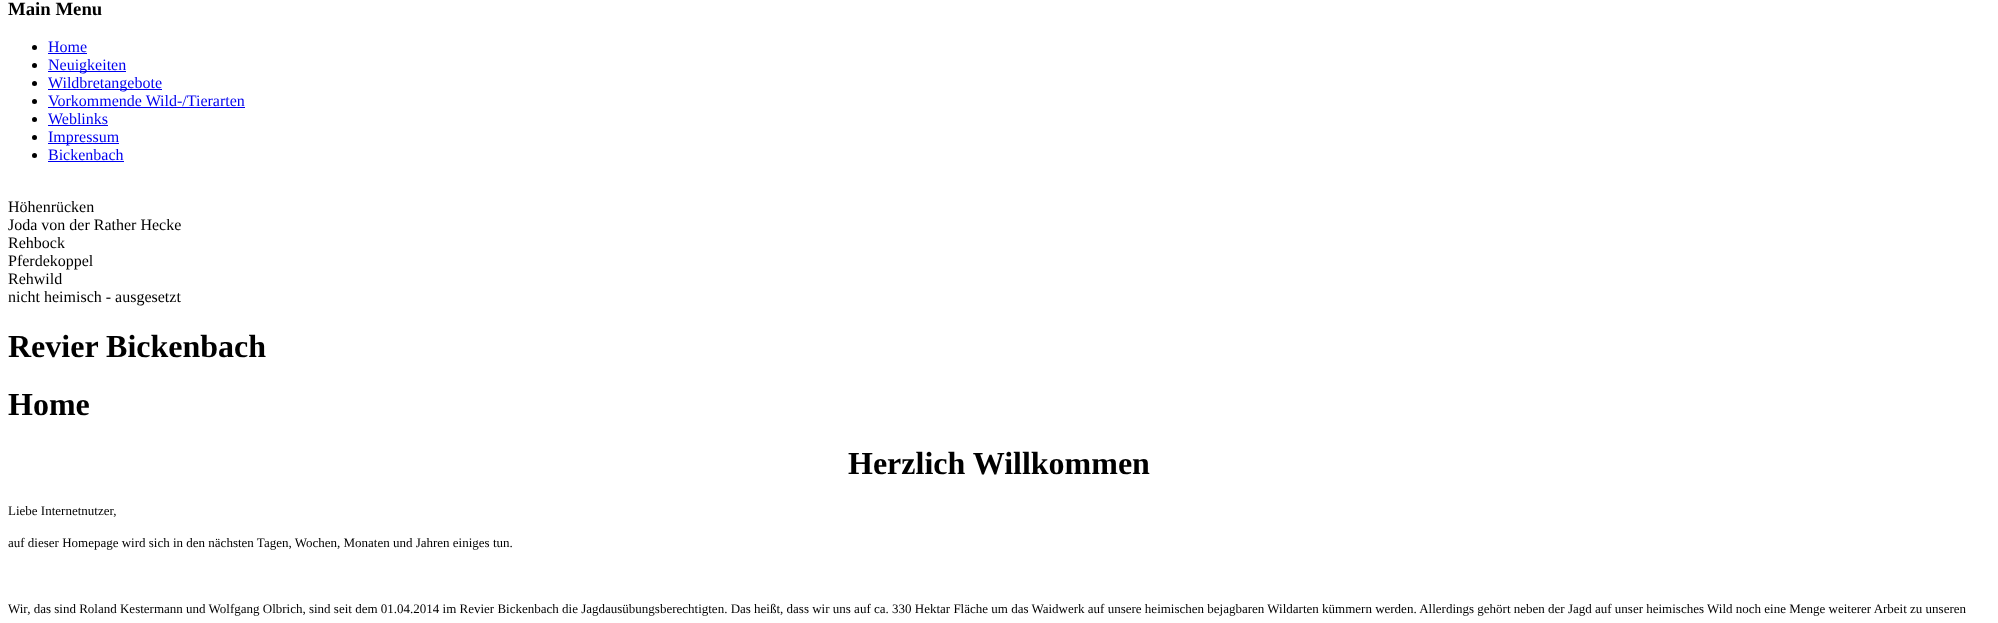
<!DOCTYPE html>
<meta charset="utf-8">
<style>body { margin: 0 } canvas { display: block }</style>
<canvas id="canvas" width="1998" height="623"></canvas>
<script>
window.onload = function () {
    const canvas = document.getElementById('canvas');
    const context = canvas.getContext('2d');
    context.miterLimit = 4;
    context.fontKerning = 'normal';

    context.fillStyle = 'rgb(255, 255, 255)';
    context.fillRect(0, 0, 1998, 623);
    context.fillStyle = 'rgb(0, 0, 0)';
    context.beginPath();
    context.arc(34.5, 47.5, 2.5, 0, 2 * Math.PI);
    context.fill();
    context.fillStyle = 'rgb(0, 0, 238)';
    context.fillRect(48, 53, 39, 1);
    context.fillStyle = 'rgb(0, 0, 0)';
    context.beginPath();
    context.arc(34.5, 65.5, 2.5, 0, 2 * Math.PI);
    context.fill();
    context.fillStyle = 'rgb(0, 0, 238)';
    context.fillRect(48, 71, 78, 1);
    context.fillStyle = 'rgb(0, 0, 0)';
    context.beginPath();
    context.arc(34.5, 83.5, 2.5, 0, 2 * Math.PI);
    context.fill();
    context.fillStyle = 'rgb(0, 0, 238)';
    context.fillRect(48, 89, 114, 1);
    context.fillStyle = 'rgb(0, 0, 0)';
    context.beginPath();
    context.arc(34.5, 101.5, 2.5, 0, 2 * Math.PI);
    context.fill();
    context.fillStyle = 'rgb(0, 0, 238)';
    context.fillRect(48, 107, 197, 1);
    context.fillStyle = 'rgb(0, 0, 0)';
    context.beginPath();
    context.arc(34.5, 119.5, 2.5, 0, 2 * Math.PI);
    context.fill();
    context.fillStyle = 'rgb(0, 0, 238)';
    context.fillRect(48, 125, 60, 1);
    context.fillStyle = 'rgb(0, 0, 0)';
    context.beginPath();
    context.arc(34.5, 137.5, 2.5, 0, 2 * Math.PI);
    context.fill();
    context.fillStyle = 'rgb(0, 0, 238)';
    context.fillRect(48, 143, 71, 1);
    context.fillStyle = 'rgb(0, 0, 0)';
    context.beginPath();
    context.arc(34.5, 155.5, 2.5, 0, 2 * Math.PI);
    context.fill();
    context.fillStyle = 'rgb(0, 0, 238)';
    context.fillRect(48, 161, 76, 1);
    context.font = 'bold 18.75px Liberation Serif';
    context.fillStyle = 'rgb(0, 0, 0)';
    context.fillText('Main Menu', 8, 15);
    context.font = '16px Liberation Serif';
    context.fillStyle = 'rgb(0, 0, 238)';
    context.fillText('Home', 48, 52);
    context.fillText('Neuigkeiten', 48, 70);
    context.fillText('Wildbretangebote', 48, 88);
    context.fillText('Vorkommende Wild-/Tierarten', 48, 106);
    context.fillText('Weblinks', 48, 124);
    context.fillText('Impressum', 48, 142);
    context.fillText('Bickenbach', 48, 160);
    context.fillStyle = 'rgb(0, 0, 0)';
    context.fillText('Höhenrücken', 8, 212);
    context.fillText('Joda von der Rather Hecke', 8, 230);
    context.fillText('Rehbock', 8, 248);
    context.fillText('Pferdekoppel', 8, 266);
    context.fillText('Rehwild', 8, 284);
    context.fillText('nicht heimisch - ausgesetzt', 8, 302);
    context.font = 'bold 32px Liberation Serif';
    context.fillText('Revier Bickenbach', 8, 357);
    context.fillText('Home', 8, 415);
    context.fillText('Herzlich Willkommen', 848, 474);
    context.font = '13px Liberation Serif';
    context.fillText('Liebe Internetnutzer,', 8, 515);
    context.fillText('auf dieser Homepage wird sich in den nächsten Tagen, Wochen, Monaten und Jahren einiges tun.', 8, 547);
    context.fillText('Wir, das sind Roland Kestermann und Wolfgang Olbrich, sind seit dem 01.04.2014 im Revier Bickenbach die Jagdausübungsberechtigten. Das heißt, dass wir uns auf ca. 330 Hektar Fläche um das Waidwerk auf unsere heimischen bejagbaren Wildarten kümmern werden. Allerdings gehört neben der Jagd auf unser heimisches Wild noch eine Menge weiterer Arbeit zu unseren', 8, 613);
};
</script>
